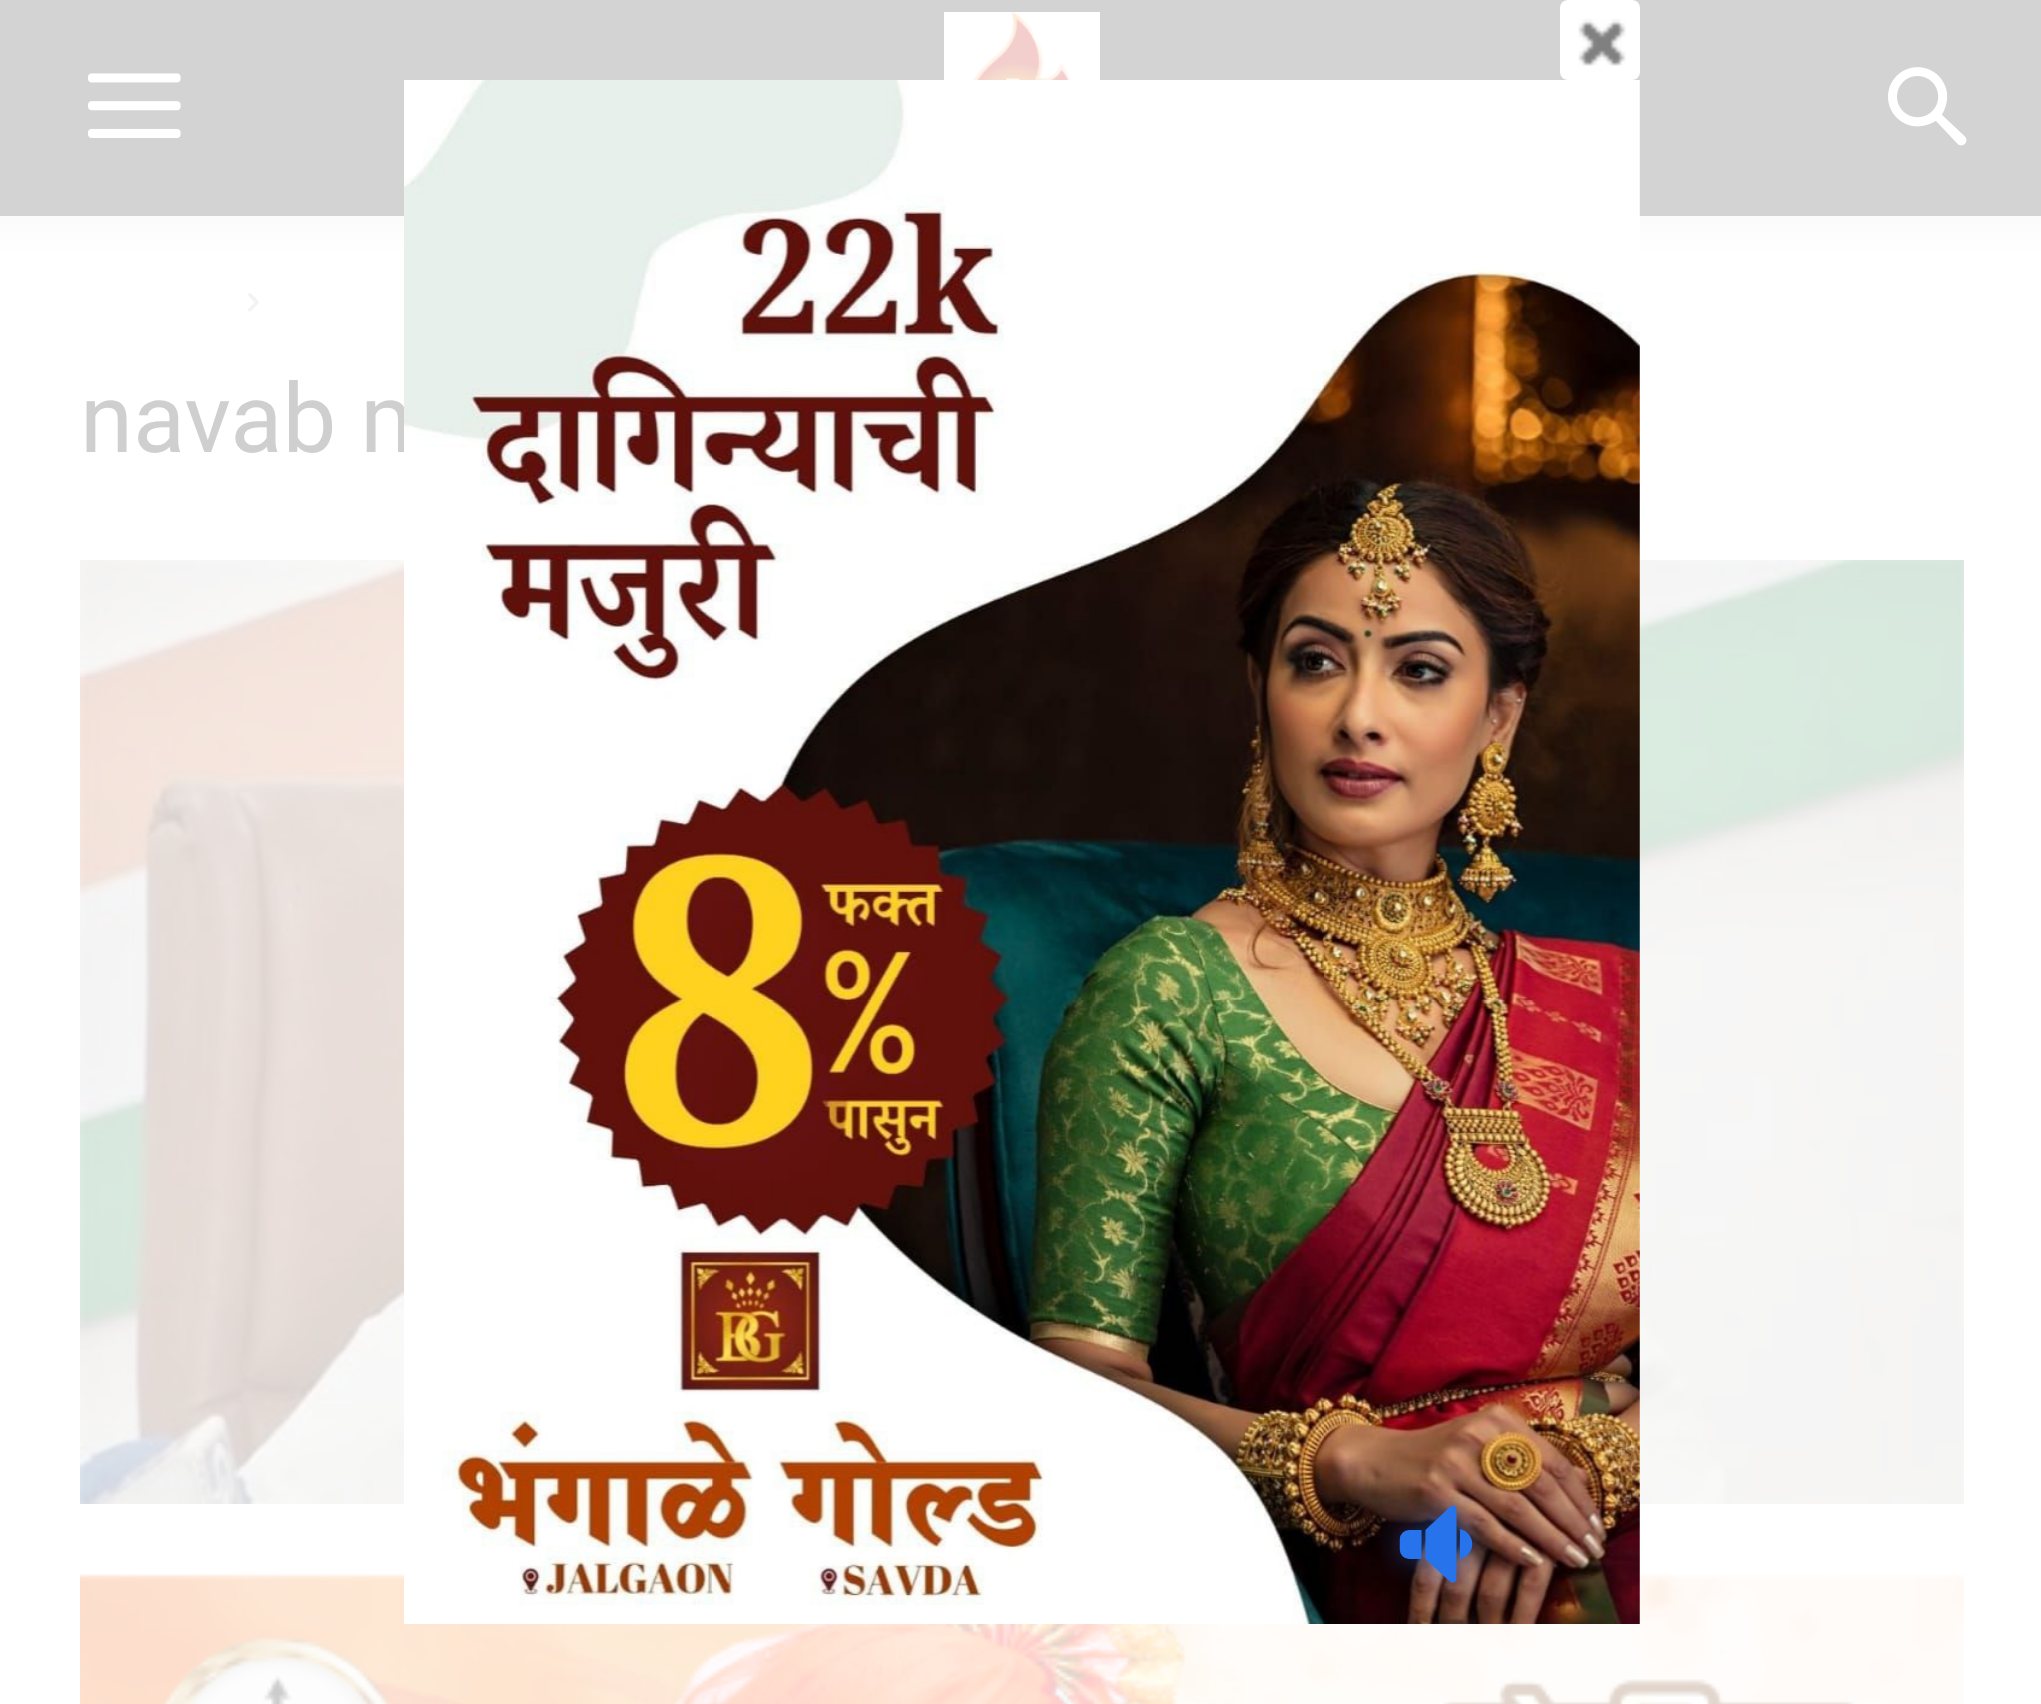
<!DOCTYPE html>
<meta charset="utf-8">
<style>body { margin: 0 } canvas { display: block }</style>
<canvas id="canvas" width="2041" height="1704"></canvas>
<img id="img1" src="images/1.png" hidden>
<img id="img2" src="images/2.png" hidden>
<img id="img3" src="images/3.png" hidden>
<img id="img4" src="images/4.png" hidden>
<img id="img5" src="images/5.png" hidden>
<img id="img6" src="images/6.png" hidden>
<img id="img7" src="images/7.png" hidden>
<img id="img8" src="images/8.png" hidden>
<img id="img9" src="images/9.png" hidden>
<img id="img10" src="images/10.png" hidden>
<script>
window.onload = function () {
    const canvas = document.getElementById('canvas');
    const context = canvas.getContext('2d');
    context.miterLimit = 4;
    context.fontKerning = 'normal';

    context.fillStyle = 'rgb(255, 255, 255)';
    context.fillRect(0, 0, 2041, 1704);
    context.fillStyle = 'rgb(211, 211, 211)';
    context.fillRect(0, 0, 2041, 216);
    context.drawImage(document.getElementById('img1'), 944, 12, 156, 68);
    context.drawImage(document.getElementById('img2'), 88, 73, 93, 65);
    context.drawImage(document.getElementById('img3'), 1888, 67, 79, 79);
    context.drawImage(document.getElementById('img4'), 0, 216, 2041, 34);
    context.drawImage(document.getElementById('img5'), 248, 293, 11, 19);
    context.drawImage(document.getElementById('img6'), 80, 560, 1884, 944);
    context.drawImage(document.getElementById('img7'), 80, 1560, 1884, 144);
    context.drawImage(document.getElementById('img8'), 1560, 0, 80, 80);
    context.font = '96px Roboto';
    context.fillStyle = 'rgb(207, 207, 207)';
    context.fillText('navab m', 80, 452);
    context.drawImage(document.getElementById('img9'), 404, 80, 1236, 1544);
    context.drawImage(document.getElementById('img10'), 1380, 1491, 111, 107);
};
</script>
